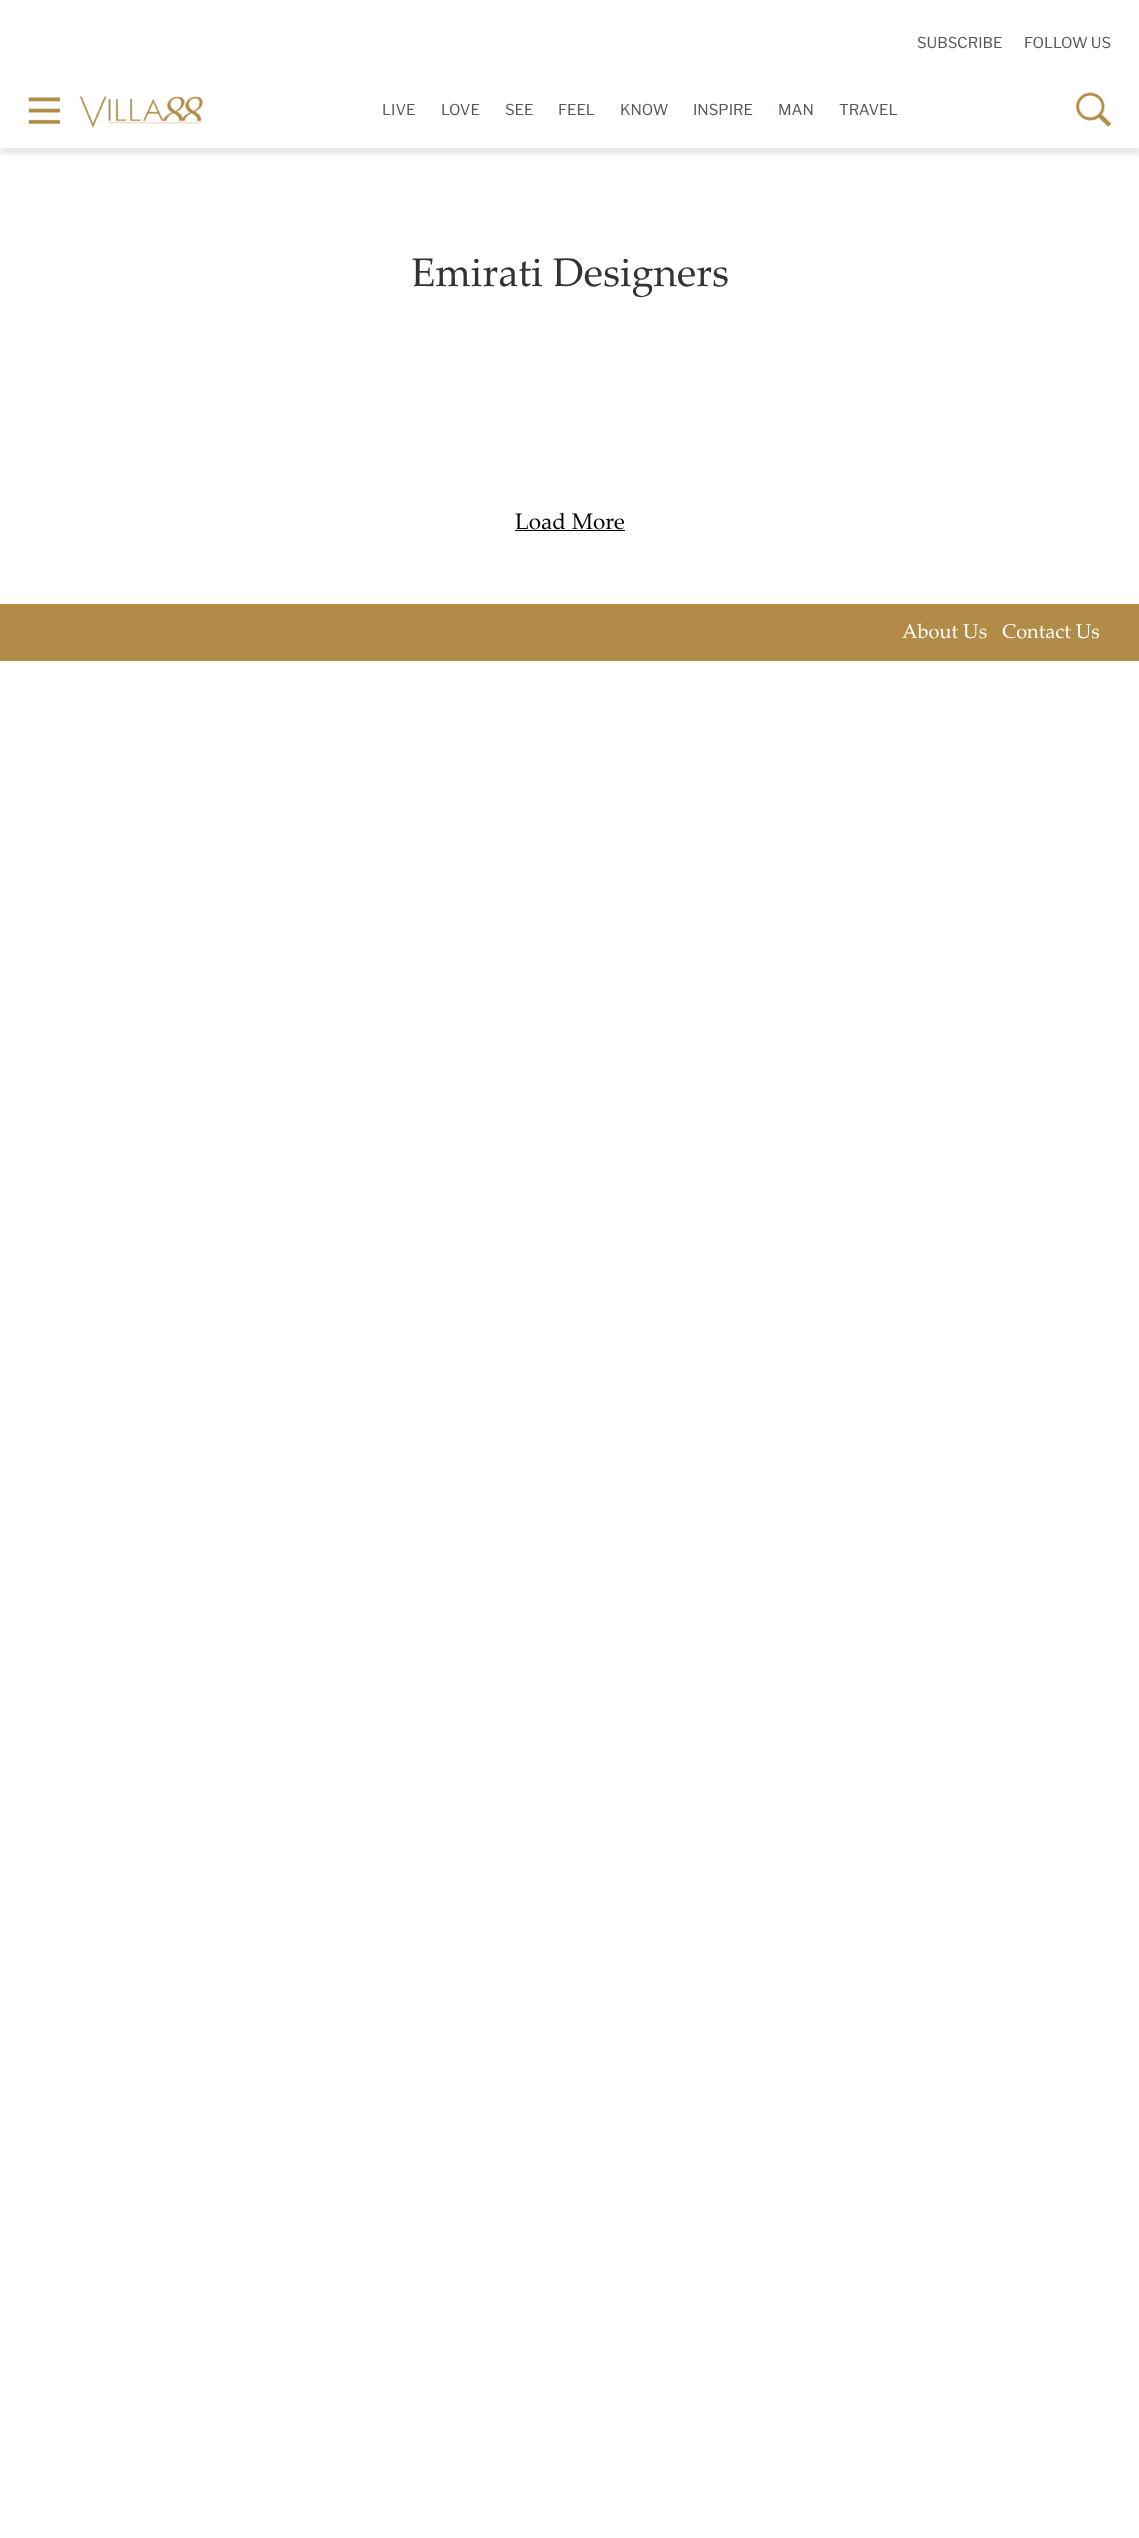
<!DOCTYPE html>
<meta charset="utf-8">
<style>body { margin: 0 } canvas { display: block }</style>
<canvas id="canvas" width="1139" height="2538"></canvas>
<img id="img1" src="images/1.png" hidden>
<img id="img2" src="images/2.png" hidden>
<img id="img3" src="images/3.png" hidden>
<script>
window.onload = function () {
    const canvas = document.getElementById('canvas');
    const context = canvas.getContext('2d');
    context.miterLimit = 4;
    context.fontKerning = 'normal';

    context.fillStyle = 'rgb(255, 255, 255)';
    context.fillRect(0, 0, 1139, 2538);
    context.fillStyle = 'rgba(34, 39, 39, 0.1)';
    context.filter = 'blur(2px)';
    context.beginPath();
    context.rect(0, 79, 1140, 75);
    context.fill();
    context.filter = 'none';
    context.fillStyle = 'rgb(255, 255, 255)';
    context.fillRect(0, 77, 1139, 71);
    context.drawImage(document.getElementById('img1'), 28, 97, 32, 27);
    context.drawImage(document.getElementById('img2'), 79, 96, 124, 32);
    context.drawImage(document.getElementById('img3'), 1076, 92, 36, 35);
    context.fillStyle = 'rgb(0, 0, 0)';
    context.fillRect(515, 530, 110, 1);
    context.fillStyle = 'rgb(178, 139, 70)';
    context.fillRect(0, 604, 1139, 57);
    context.font = '15px Libre Franklin';
    context.fillStyle = 'rgb(83, 89, 90)';
    context.fillText('SUBSCRIBE', 917, 48);
    context.fillText('FOLLOW US', 1024, 48);
    context.fillText('LIVE', 382, 115);
    context.fillText('LOVE', 441, 115);
    context.fillText('SEE', 505, 115);
    context.fillText('FEEL', 558, 115);
    context.fillText('KNOW', 620, 115);
    context.fillText('INSPIRE', 693, 115);
    context.fillText('MAN', 778, 115);
    context.fillText('TRAVEL', 839, 115);
    context.font = '40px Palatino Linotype';
    context.fillStyle = 'rgb(51, 51, 51)';
    context.fillText('Emirati Designers', 411, 286);
    context.font = '22.5px Palatino Linotype';
    context.fillStyle = 'rgb(0, 0, 0)';
    context.fillText('Load More', 515, 529);
    context.font = '20px Palatino Linotype';
    context.fillStyle = 'rgb(255, 255, 255)';
    context.fillText('About Us', 902, 638);
    context.fillText('Contact Us', 1002, 638);
};
</script>
